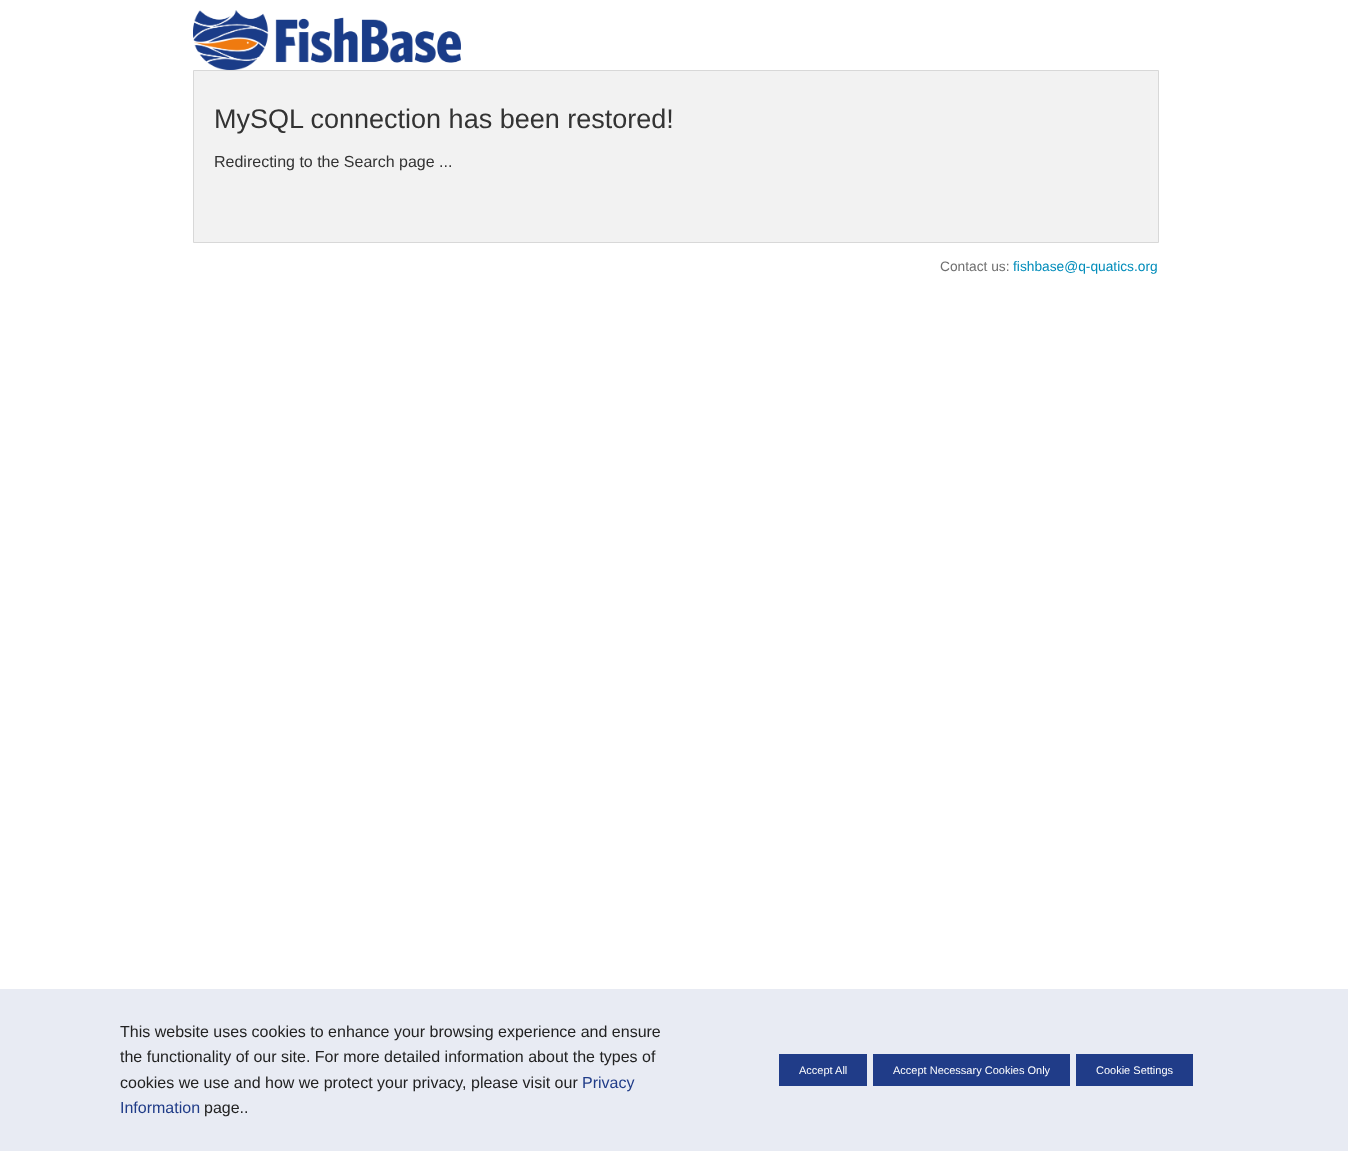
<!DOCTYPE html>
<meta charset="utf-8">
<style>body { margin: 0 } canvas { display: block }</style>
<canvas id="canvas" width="1348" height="1151"></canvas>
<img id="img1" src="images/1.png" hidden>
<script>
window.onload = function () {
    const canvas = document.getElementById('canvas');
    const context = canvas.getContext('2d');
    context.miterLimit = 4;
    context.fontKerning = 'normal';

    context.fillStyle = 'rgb(255, 255, 255)';
    context.fillRect(0, 0, 1348, 1151);
    context.drawImage(document.getElementById('img1'), 193, 10, 268, 60);
    context.fillStyle = 'rgb(242, 242, 242)';
    context.beginPath();
    context.rect(193.5, 70.5, 965, 172);
    context.fill();
    context.strokeStyle = 'rgb(216, 216, 216)';
    context.stroke();
    context.fillStyle = 'rgb(232, 235, 243)';
    context.fillRect(0, 989, 1348, 162);
    context.fillStyle = 'rgb(32, 60, 136)';
    context.fillRect(779, 1054, 88, 32);
    context.fillRect(873, 1054, 197, 32);
    context.fillRect(1076, 1054, 117, 32);
    context.font = '27px Liberation Sans';
    context.fillStyle = 'rgb(51, 51, 51)';
    context.fillText('MySQL connection has been restored!', 214, 128);
    context.font = '16px Liberation Sans';
    context.fillText('Redirecting to the Search page ...', 214, 167);
    context.font = '13.75px Liberation Sans';
    context.fillStyle = 'rgb(111, 111, 111)';
    context.fillText('Contact us:', 940, 271);
    context.fillStyle = 'rgb(0, 140, 186)';
    context.fillText('fishbase@q-quatics.org', 1013, 271);
    context.font = '16px Liberation Sans';
    context.fillStyle = 'rgb(34, 34, 34)';
    context.fillText('This website uses cookies to enhance your browsing experience and ensure', 120, 1037);
    context.fillText('the functionality of our site. For more detailed information about the types of', 120, 1062);
    context.fillText('cookies we use and how we protect your privacy, please visit our', 120, 1088);
    context.fillStyle = 'rgb(32, 60, 136)';
    context.fillText('Privacy', 582, 1088);
    context.fillText('Information', 120, 1113);
    context.fillStyle = 'rgb(34, 34, 34)';
    context.fillText('page..', 204, 1113);
    context.font = '11px Liberation Sans';
    context.fillStyle = 'rgb(255, 255, 255)';
    context.fillText('Accept All', 799, 1074);
    context.fillText('Accept Necessary Cookies Only', 893, 1074);
    context.fillText('Cookie Settings', 1096, 1074);
};
</script>
